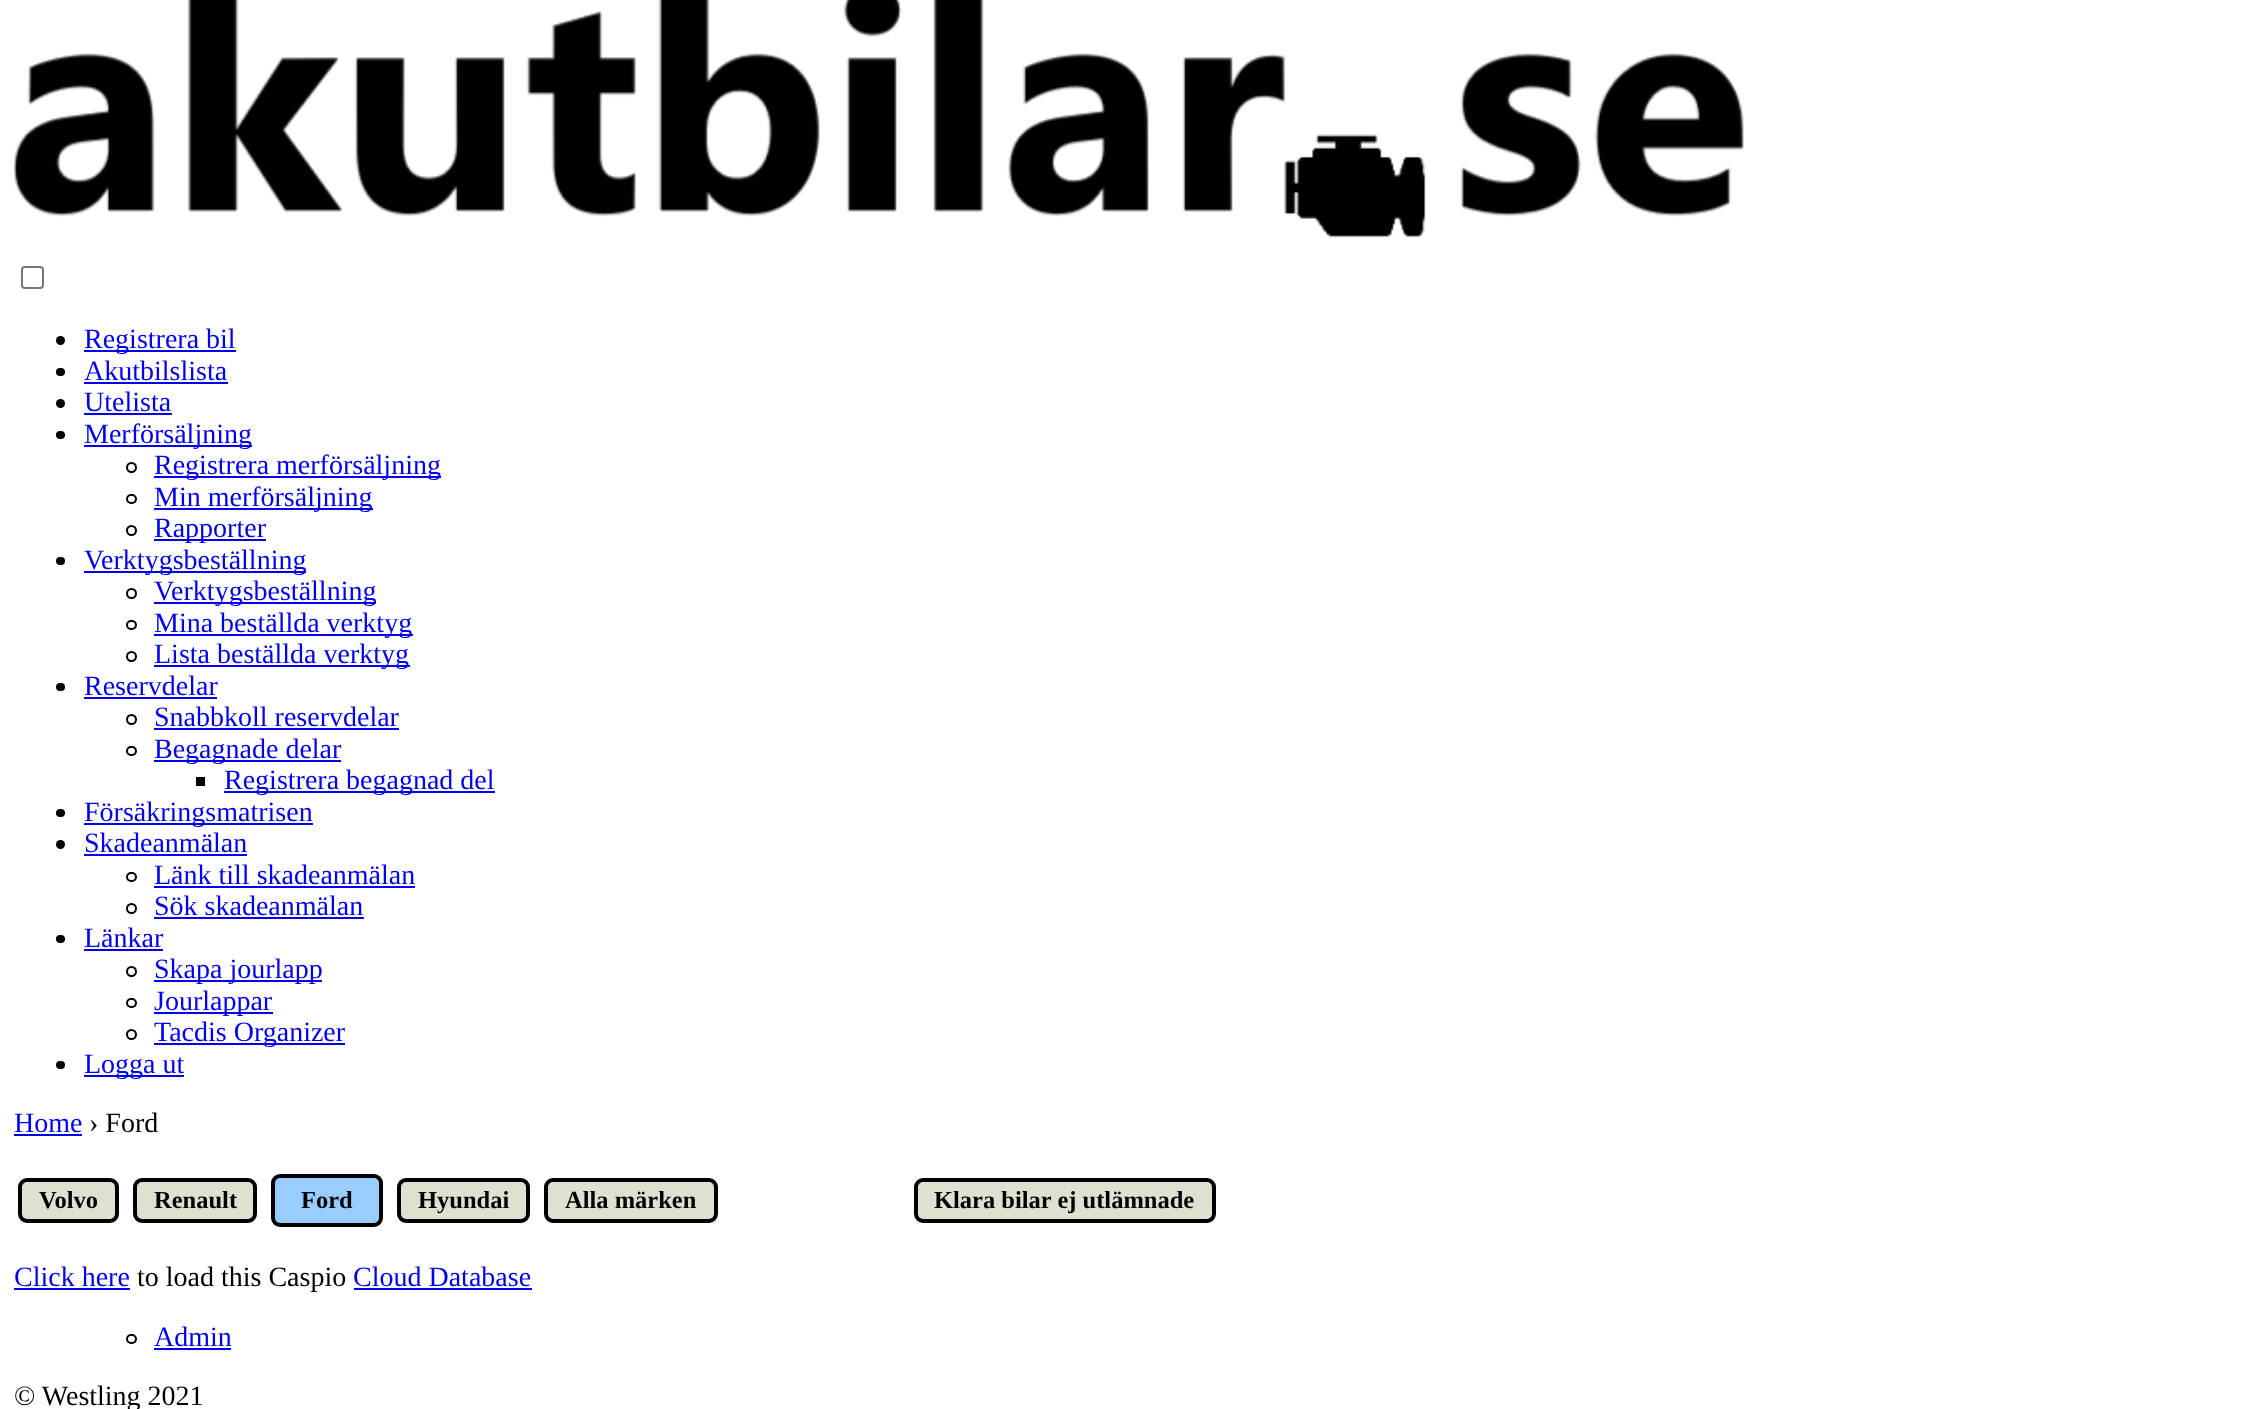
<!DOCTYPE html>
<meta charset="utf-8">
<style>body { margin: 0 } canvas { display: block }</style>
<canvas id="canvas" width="2248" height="1409"></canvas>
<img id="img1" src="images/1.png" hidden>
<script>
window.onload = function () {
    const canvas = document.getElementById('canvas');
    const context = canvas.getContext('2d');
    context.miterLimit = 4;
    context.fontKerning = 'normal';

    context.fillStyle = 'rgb(255, 255, 255)';
    context.fillRect(0, 0, 2248, 1409);
    context.drawImage(document.getElementById('img1'), 14, 0, 1730, 238);
    context.beginPath();
    context.roundRect(22, 267, 21, 21, 3);
    context.strokeStyle = 'rgb(118, 118, 118)';
    context.lineWidth = 2;
    context.stroke();
    context.fillStyle = 'rgb(0, 0, 0)';
    context.beginPath();
    context.arc(60.5, 340.5, 4.5, 0, 2 * Math.PI);
    context.fill();
    context.fillStyle = 'rgb(0, 0, 238)';
    context.fillRect(84, 350, 152, 2);
    context.fillStyle = 'rgb(0, 0, 0)';
    context.beginPath();
    context.roundRect(56, 368, 9, 8, 4);
    context.fill();
    context.fillStyle = 'rgb(0, 0, 238)';
    context.fillRect(84, 382, 144, 2);
    context.fillStyle = 'rgb(0, 0, 0)';
    context.beginPath();
    context.arc(60.5, 403.5, 4.5, 0, 2 * Math.PI);
    context.fill();
    context.fillStyle = 'rgb(0, 0, 238)';
    context.fillRect(84, 413, 88, 2);
    context.fillStyle = 'rgb(0, 0, 0)';
    context.beginPath();
    context.roundRect(56, 431, 9, 8, 4);
    context.fill();
    context.fillStyle = 'rgb(0, 0, 238)';
    context.fillRect(84, 445, 168, 2);
    context.beginPath();
    context.arc(131.5, 467.5, 4.5, 0, 2 * Math.PI);
    context.strokeStyle = 'rgb(0, 0, 0)';
    context.stroke();
    context.fillRect(154, 476, 287, 2);
    context.beginPath();
    context.roundRect(127, 495, 9, 8, 4);
    context.stroke();
    context.fillRect(154, 508, 219, 2);
    context.beginPath();
    context.arc(131.5, 530.5, 4.5, 0, 2 * Math.PI);
    context.stroke();
    context.fillRect(154, 539, 112, 2);
    context.fillStyle = 'rgb(0, 0, 0)';
    context.beginPath();
    context.roundRect(56, 557, 9, 8, 4);
    context.fill();
    context.fillStyle = 'rgb(0, 0, 238)';
    context.fillRect(84, 571, 222, 2);
    context.beginPath();
    context.arc(131.5, 593.5, 4.5, 0, 2 * Math.PI);
    context.stroke();
    context.fillRect(154, 602, 222, 2);
    context.beginPath();
    context.roundRect(127, 621, 9, 8, 4);
    context.stroke();
    context.fillRect(154, 634, 259, 2);
    context.beginPath();
    context.arc(131.5, 656.5, 4.5, 0, 2 * Math.PI);
    context.stroke();
    context.fillRect(154, 665, 256, 2);
    context.fillStyle = 'rgb(0, 0, 0)';
    context.beginPath();
    context.roundRect(56, 683, 9, 8, 4);
    context.fill();
    context.fillStyle = 'rgb(0, 0, 238)';
    context.fillRect(84, 697, 133, 2);
    context.beginPath();
    context.arc(131.5, 719.5, 4.5, 0, 2 * Math.PI);
    context.stroke();
    context.fillRect(154, 728, 245, 2);
    context.beginPath();
    context.roundRect(127, 747, 9, 8, 4);
    context.stroke();
    context.fillRect(154, 760, 187, 2);
    context.fillStyle = 'rgb(0, 0, 0)';
    context.fillRect(196, 777, 9, 9);
    context.fillStyle = 'rgb(0, 0, 238)';
    context.fillRect(224, 791, 271, 2);
    context.fillStyle = 'rgb(0, 0, 0)';
    context.beginPath();
    context.roundRect(56, 809, 9, 8, 4);
    context.fill();
    context.fillStyle = 'rgb(0, 0, 238)';
    context.fillRect(84, 823, 229, 2);
    context.fillStyle = 'rgb(0, 0, 0)';
    context.beginPath();
    context.arc(60.5, 844.5, 4.5, 0, 2 * Math.PI);
    context.fill();
    context.fillStyle = 'rgb(0, 0, 238)';
    context.fillRect(84, 854, 163, 2);
    context.beginPath();
    context.roundRect(127, 873, 9, 8, 4);
    context.stroke();
    context.fillRect(154, 886, 261, 2);
    context.beginPath();
    context.arc(131.5, 908.5, 4.5, 0, 2 * Math.PI);
    context.stroke();
    context.fillRect(154, 917, 210, 2);
    context.fillStyle = 'rgb(0, 0, 0)';
    context.beginPath();
    context.roundRect(56, 935, 9, 8, 4);
    context.fill();
    context.fillStyle = 'rgb(0, 0, 238)';
    context.fillRect(84, 949, 79, 2);
    context.beginPath();
    context.arc(131.5, 971.5, 4.5, 0, 2 * Math.PI);
    context.stroke();
    context.fillRect(154, 980, 168, 2);
    context.beginPath();
    context.roundRect(127, 999, 9, 8, 4);
    context.stroke();
    context.fillRect(154, 1012, 119, 2);
    context.beginPath();
    context.arc(131.5, 1034.5, 4.5, 0, 2 * Math.PI);
    context.stroke();
    context.fillRect(154, 1043, 191, 2);
    context.fillStyle = 'rgb(0, 0, 0)';
    context.beginPath();
    context.roundRect(56, 1061, 9, 8, 4);
    context.fill();
    context.fillStyle = 'rgb(0, 0, 238)';
    context.fillRect(84, 1075, 100, 2);
    context.fillRect(14, 1134, 68, 2);
    context.fillStyle = 'rgb(224, 224, 209)';
    context.beginPath();
    context.roundRect(20, 1180, 97, 41, 7);
    context.fill();
    context.lineWidth = 4;
    context.stroke();
    context.beginPath();
    context.roundRect(135, 1180, 120, 41, 7);
    context.fill();
    context.stroke();
    context.fillStyle = 'rgb(153, 204, 255)';
    context.beginPath();
    context.roundRect(273, 1176, 108, 49, 7);
    context.fill();
    context.stroke();
    context.fillStyle = 'rgb(224, 224, 209)';
    context.beginPath();
    context.roundRect(399, 1180, 129, 41, 7);
    context.fill();
    context.stroke();
    context.beginPath();
    context.roundRect(546, 1180, 170, 41, 7);
    context.fill();
    context.stroke();
    context.beginPath();
    context.roundRect(916, 1180, 298, 41, 7);
    context.fill();
    context.stroke();
    context.fillStyle = 'rgb(0, 0, 238)';
    context.fillRect(14, 1288, 116, 2);
    context.fillRect(354, 1288, 178, 2);
    context.beginPath();
    context.roundRect(127, 1335, 9, 8, 4);
    context.lineWidth = 2;
    context.stroke();
    context.fillRect(154, 1348, 77, 2);
    context.font = '28px Liberation Serif';
    context.fillText('Registrera bil', 84, 348);
    context.fillText('Akutbilslista', 84, 380);
    context.fillText('Utelista', 84, 411);
    context.fillText('Merförsäljning', 84, 443);
    context.fillText('Registrera merförsäljning', 154, 474);
    context.fillText('Min merförsäljning', 154, 506);
    context.fillText('Rapporter', 154, 537);
    context.fillText('Verktygsbeställning', 84, 569);
    context.fillText('Verktygsbeställning', 154, 600);
    context.fillText('Mina beställda verktyg', 154, 632);
    context.fillText('Lista beställda verktyg', 154, 663);
    context.fillText('Reservdelar', 84, 695);
    context.fillText('Snabbkoll reservdelar', 154, 726);
    context.fillText('Begagnade delar', 154, 758);
    context.fillText('Registrera begagnad del', 224, 789);
    context.fillText('Försäkringsmatrisen', 84, 821);
    context.fillText('Skadeanmälan', 84, 852);
    context.fillText('Länk till skadeanmälan', 154, 884);
    context.fillText('Sök skadeanmälan', 154, 915);
    context.fillText('Länkar', 84, 947);
    context.fillText('Skapa jourlapp', 154, 978);
    context.fillText('Jourlappar', 154, 1010);
    context.fillText('Tacdis Organizer', 154, 1041);
    context.fillText('Logga ut', 84, 1073);
    context.fillText('Home', 14, 1132);
    context.fillStyle = 'rgb(0, 0, 0)';
    context.fillText('› Ford', 89, 1132);
    context.font = 'bold 24.5px Liberation Serif';
    context.fillText('Volvo', 39, 1208);
    context.fillText('Renault', 154, 1208);
    context.fillText('Ford', 301, 1208);
    context.fillText('Hyundai', 418, 1208);
    context.fillText('Alla märken', 565, 1208);
    context.fillText('Klara bilar ej utlämnade', 934, 1208);
    context.font = '28px Liberation Serif';
    context.fillStyle = 'rgb(0, 0, 238)';
    context.fillText('Click here', 14, 1286);
    context.fillStyle = 'rgb(0, 0, 0)';
    context.fillText('to load this Caspio', 137, 1286);
    context.fillStyle = 'rgb(0, 0, 238)';
    context.fillText('Cloud Database', 353, 1286);
    context.fillText('Admin', 154, 1346);
    context.fillStyle = 'rgb(0, 0, 0)';
    context.fillText('© Westling 2021', 14, 1405);
};
</script>
